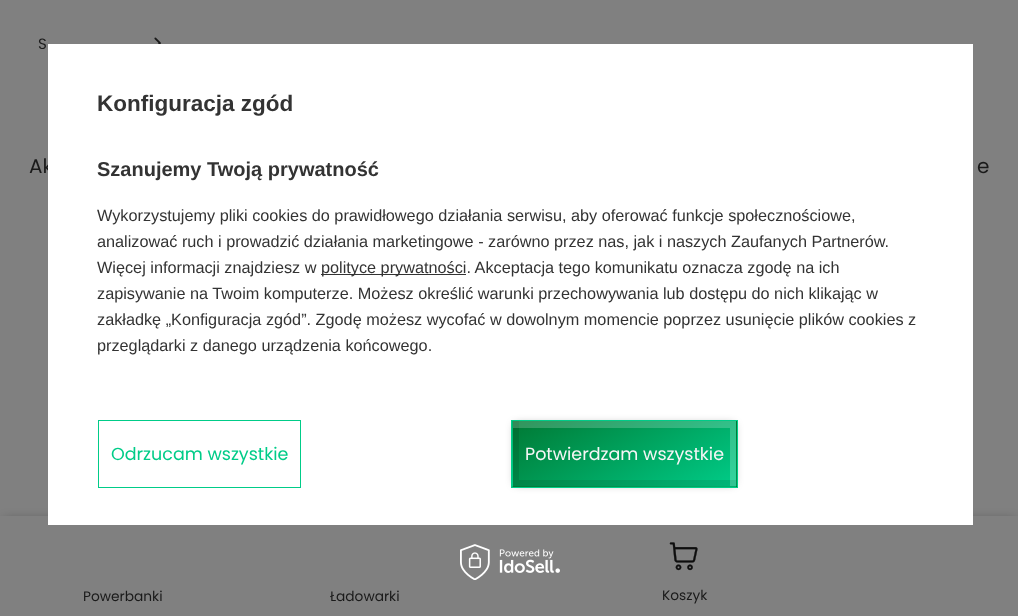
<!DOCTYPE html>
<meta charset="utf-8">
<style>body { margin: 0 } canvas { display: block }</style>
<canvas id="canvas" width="1018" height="616"></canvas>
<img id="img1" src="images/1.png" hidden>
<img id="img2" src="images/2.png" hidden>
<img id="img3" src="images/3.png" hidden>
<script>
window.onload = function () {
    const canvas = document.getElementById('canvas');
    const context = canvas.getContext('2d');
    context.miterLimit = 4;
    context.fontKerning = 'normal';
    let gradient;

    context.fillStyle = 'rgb(128, 128, 128)';
    context.fillRect(0, 0, 1018, 616);
    context.drawImage(document.getElementById('img1'), 154, 37, 7, 7);
    context.fillStyle = 'rgba(0, 0, 0, 0.4)';
    context.filter = 'blur(5.5px)';
    context.beginPath();
    context.rect(4, 520, 1011, 93);
    context.fill();
    context.filter = 'none';
    context.fillStyle = 'rgb(128, 128, 128)';
    context.fillRect(0, 516, 1018, 100);
    context.drawImage(document.getElementById('img2'), 669, 542, 29, 29);
    context.drawImage(document.getElementById('img3'), 460, 544, 100, 36);
    context.font = '15px Poppins';
    context.fillStyle = 'rgb(26, 26, 26)';
    context.fillText('S', 38, 49);
    context.font = '20px Poppins';
    context.fillText('Ak', 29, 173);
    context.fillText('e', 977, 173);
    context.font = '13.75px Poppins';
    context.fillText('Powerbanki', 83, 601);
    context.fillText('Ładowarki', 330, 601);
    context.fillText('Koszyk', 662, 600);
    context.fillStyle = 'rgb(255, 255, 255)';
    context.fillRect(48, 44, 925, 481);
    context.font = 'bold 22.5px Liberation Sans';
    context.fillStyle = 'rgb(51, 51, 51)';
    context.fillText('Konfiguracja zgód', 97, 111);
    context.font = 'bold 20px Liberation Sans';
    context.fillText('Szanujemy Twoją prywatność', 97, 176);
    context.font = '16.25px Liberation Sans';
    context.fillText('Wykorzystujemy pliki cookies do prawidłowego działania serwisu, aby oferować funkcje społecznościowe,', 97, 221);
    context.fillText('analizować ruch i prowadzić działania marketingowe - zarówno przez nas, jak i naszych Zaufanych Partnerów.', 97, 247);
    context.fillText('Więcej informacji znajdziesz w', 97, 273);
    context.fillRect(321, 274, 145, 1);
    context.fillText('polityce prywatności. Akceptacja tego komunikatu oznacza zgodę na ich', 321, 273);
    context.fillText('zapisywanie na Twoim komputerze. Możesz określić warunki przechowywania lub dostępu do nich klikając w', 97, 299);
    context.fillText('zakładkę „Konfiguracja zgód”. Zgodę możesz wycofać w dowolnym momencie poprzez usunięcie plików cookies z', 97, 325);
    context.fillText('przeglądarki z danego urządzenia końcowego.', 97, 351);
    context.strokeStyle = 'rgb(0, 204, 136)';
    context.strokeRect(98.5, 420.5, 202, 67);
    context.font = '17.5px Poppins';
    context.fillStyle = 'rgb(0, 204, 136)';
    context.fillText('Odrzucam wszystkie', 111, 460);
    context.fillStyle = 'rgba(0, 0, 0, 0.4)';
    context.filter = 'blur(4px)';
    context.beginPath();
    context.rect(515, 424, 219, 60);
    context.fill();
    context.filter = 'none';
    gradient = context.createLinearGradient(359, 381, 443, 527);
    gradient.addColorStop(0, 'rgb(0, 121, 52)');
    gradient.addColorStop(1, 'rgb(0, 204, 136)');
    context.fillStyle = gradient;
    context.fillRect(512, 421, 1, 65);
    gradient = context.createLinearGradient(582, 381, 666, 527);
    gradient.addColorStop(0, 'rgb(0, 121, 52)');
    gradient.addColorStop(1, 'rgb(0, 204, 136)');
    context.fillStyle = gradient;
    context.fillRect(513, 421, 223, 65);
    gradient = context.createLinearGradient(806, 381, 890, 527);
    gradient.addColorStop(0, 'rgb(0, 121, 52)');
    gradient.addColorStop(1, 'rgb(0, 204, 136)');
    context.fillStyle = gradient;
    context.fillRect(736, 421, 1, 65);
    gradient = context.createLinearGradient(359, 446, 443, 592);
    gradient.addColorStop(0, 'rgb(0, 121, 52)');
    gradient.addColorStop(1, 'rgb(0, 204, 136)');
    context.fillStyle = gradient;
    context.fillRect(511, 486, 2, 1);
    gradient = context.createLinearGradient(582, 446, 666, 592);
    gradient.addColorStop(0, 'rgb(0, 121, 52)');
    gradient.addColorStop(1, 'rgb(0, 204, 136)');
    context.fillStyle = gradient;
    context.fillRect(513, 486, 223, 1);
    gradient = context.createLinearGradient(806, 446, 890, 592);
    gradient.addColorStop(0, 'rgb(0, 121, 52)');
    gradient.addColorStop(1, 'rgb(0, 204, 136)');
    context.fillStyle = gradient;
    context.fillRect(736, 486, 2, 1);
    context.save();
    context.beginPath();
    context.rect(513, 421, 223, 65);
    context.clip();
    context.fillStyle = 'rgba(0, 0, 0, 0.1)';
    context.beginPath();
    context.moveTo(389, 298);
    context.lineTo(860, 298);
    context.lineTo(860, 610);
    context.lineTo(389, 610);
    context.closePath();
    context.moveTo(519, 420);
    context.lineTo(738, 420);
    context.lineTo(738, 480);
    context.lineTo(519, 480);
    context.closePath();
    context.fill('evenodd');
    context.fillStyle = 'rgba(255, 255, 255, 0.2)';
    context.beginPath();
    context.moveTo(389, 298);
    context.lineTo(860, 298);
    context.lineTo(860, 610);
    context.lineTo(389, 610);
    context.closePath();
    context.moveTo(511, 428);
    context.lineTo(730, 428);
    context.lineTo(730, 488);
    context.lineTo(511, 488);
    context.closePath();
    context.fill('evenodd');
    context.restore();
    context.strokeRect(511.5, 420.5, 226, 67);
    context.fillStyle = 'rgb(246, 246, 246)';
    context.fillText('Potwierdzam wszystkie', 525, 460);
};
</script>
